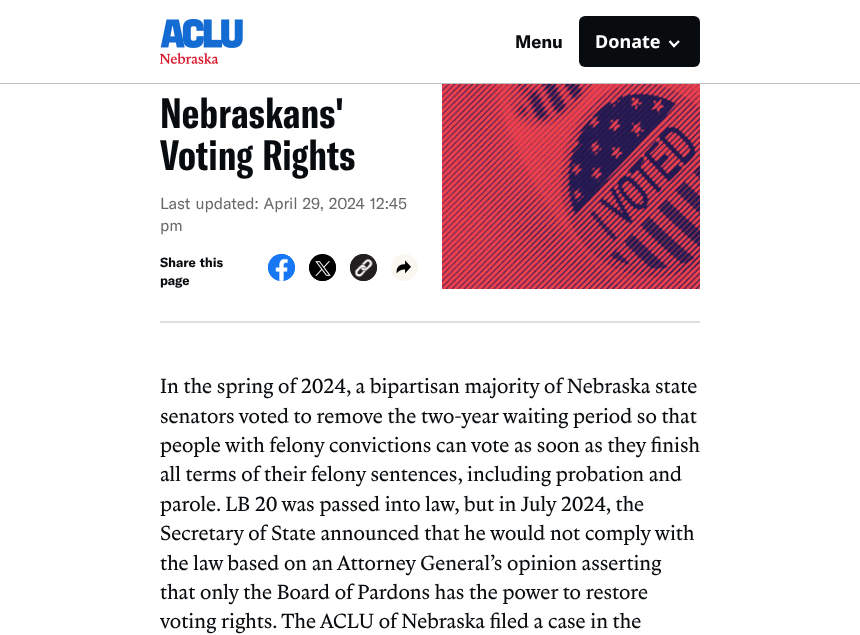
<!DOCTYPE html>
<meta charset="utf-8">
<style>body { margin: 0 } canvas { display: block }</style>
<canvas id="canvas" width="860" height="635"></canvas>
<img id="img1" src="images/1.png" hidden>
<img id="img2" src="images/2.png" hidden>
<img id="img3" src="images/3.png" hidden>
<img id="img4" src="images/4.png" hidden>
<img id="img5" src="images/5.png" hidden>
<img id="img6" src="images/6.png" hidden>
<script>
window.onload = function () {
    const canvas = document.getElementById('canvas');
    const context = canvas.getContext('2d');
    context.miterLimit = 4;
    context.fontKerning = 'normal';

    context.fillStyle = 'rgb(255, 255, 255)';
    context.fillRect(0, 0, 860, 635);
    context.fillStyle = 'rgb(191, 191, 191)';
    context.fillRect(0, 83, 860, 1);
    context.drawImage(document.getElementById('img1'), 160, 19, 83, 45);
    context.fillStyle = 'rgb(9, 12, 15)';
    context.beginPath();
    context.roundRect(579, 16, 121, 51, 6);
    context.fill();
    context.beginPath();
    context.moveTo(669.5, 41);
    context.lineTo(674, 46);
    context.lineTo(679, 41);
    context.strokeStyle = 'rgb(255, 255, 255)';
    context.lineWidth = 2.3;
    context.stroke();
    context.fillStyle = 'rgb(223, 223, 223)';
    context.fillRect(160, 321, 540, 2);
    context.fillStyle = 'rgb(24, 119, 242)';
    context.beginPath();
    context.arc(281.5, 267.5, 13.5, 0, 2 * Math.PI);
    context.fill();
    context.drawImage(document.getElementById('img2'), 268, 254, 27, 27);
    context.fillStyle = 'rgb(0, 0, 0)';
    context.beginPath();
    context.arc(322.5, 267.5, 13.5, 0, 2 * Math.PI);
    context.fill();
    context.drawImage(document.getElementById('img3'), 309, 254, 27, 27);
    context.fillStyle = 'rgb(35, 31, 32)';
    context.beginPath();
    context.arc(363.5, 267.5, 13.5, 0, 2 * Math.PI);
    context.fill();
    context.drawImage(document.getElementById('img4'), 350, 254, 27, 27);
    context.fillStyle = 'rgb(250, 246, 240)';
    context.beginPath();
    context.arc(404.5, 267.5, 13.5, 0, 2 * Math.PI);
    context.fill();
    context.drawImage(document.getElementById('img5'), 391, 255, 20, 25);
    context.drawImage(document.getElementById('img6'), 442, 84, 258, 205);
    context.letterSpacing = '-0.1px';
    context.font = 'bold 18px "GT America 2"';
    context.fillStyle = 'rgb(9, 12, 15)';
    context.fillText('Menu', 515, 48);
    context.letterSpacing = '0px';
    context.font = 'bold 18px Noto Sans';
    context.fillStyle = 'rgb(255, 255, 255)';
    context.fillText('Donate', 595, 48);
    context.letterSpacing = '0.1px';
    context.font = 'bold 42px GT America';
    context.fillStyle = 'rgb(9, 12, 15)';
    context.fillText('Nebraskans\'', 160, 128);
    context.wordSpacing = '2px';
    context.fillText('Voting Rights', 160, 170);
    context.letterSpacing = '-0.1px';
    context.wordSpacing = '1px';
    context.font = '16px GT America';
    context.fillStyle = 'rgb(105, 105, 104)';
    context.fillText('Last updated: April 29, 2024 12:45', 160, 209);
    context.wordSpacing = '0px';
    context.fillText('pm', 160, 231);
    context.wordSpacing = '1px';
    context.font = 'bold 13px "GT America 2"';
    context.fillStyle = 'rgb(9, 12, 15)';
    context.fillText('Share this', 160, 267);
    context.wordSpacing = '0px';
    context.fillText('page', 160, 285);
    context.letterSpacing = '0px';
    context.font = '21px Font';
    context.fillText('In the spring of 2024, a bipartisan majority of Nebraska state', 160, 393);
    context.fillText('senators voted to remove the two-year waiting period so that', 160, 423);
    context.fillText('people with felony convictions can vote as soon as they finish', 160, 452);
    context.fillText('all terms of their felony sentences, including probation and', 160, 481);
    context.fillText('parole. LB 20 was passed into law, but in July 2024, the', 160, 511);
    context.fillText('Secretary of State announced that he would not comply with', 160, 540);
    context.fillText('the law based on an Attorney General’s opinion asserting', 160, 570);
    context.fillText('that only the Board of Pardons has the power to restore', 160, 599);
    context.fillText('voting rights. The ACLU of Nebraska filed a case in the', 160, 628);
};
</script>
